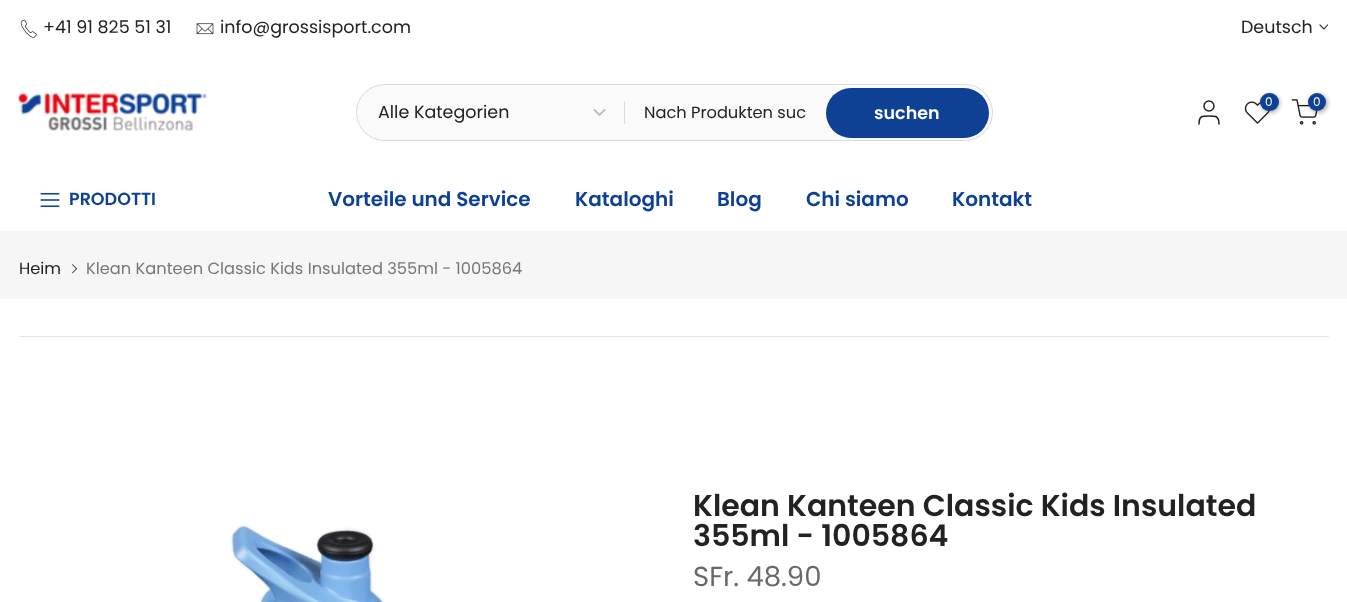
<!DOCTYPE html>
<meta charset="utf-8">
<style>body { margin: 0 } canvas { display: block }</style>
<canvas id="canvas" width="1347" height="602"></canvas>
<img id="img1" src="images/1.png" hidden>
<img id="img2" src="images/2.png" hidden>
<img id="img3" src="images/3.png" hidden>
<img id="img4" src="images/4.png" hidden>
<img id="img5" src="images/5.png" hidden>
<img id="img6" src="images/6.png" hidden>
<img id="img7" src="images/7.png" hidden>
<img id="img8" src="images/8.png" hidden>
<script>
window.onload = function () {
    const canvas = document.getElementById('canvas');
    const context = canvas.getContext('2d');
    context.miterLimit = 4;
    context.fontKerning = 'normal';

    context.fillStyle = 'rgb(255, 255, 255)';
    context.fillRect(0, 0, 1347, 602);
    context.drawImage(document.getElementById('img1'), 20, 19, 17, 19);
    context.drawImage(document.getElementById('img2'), 196, 23, 18, 12);
    context.beginPath();
    context.moveTo(1327.5, 25);
    context.lineTo(1324, 29);
    context.lineTo(1320, 25);
    context.strokeStyle = 'rgb(34, 34, 34)';
    context.lineWidth = 1.1;
    context.lineCap = 'square';
    context.stroke();
    context.drawImage(document.getElementById('img3'), 18, 93, 189, 38);
    context.beginPath();
    context.arc(1209, 106, 5, 0, 2 * Math.PI);
    context.lineWidth = 1.5;
    context.stroke();
    context.beginPath();
    context.moveTo(1219, 124);
    context.bezierCurveTo(1219, 116, 1215.5, 116, 1209, 116);
    context.bezierCurveTo(1202, 116, 1199, 116, 1199, 124);
    context.lineCap = 'round';
    context.lineJoin = 'round';
    context.stroke();
    context.drawImage(document.getElementById('img4'), 1244, 101, 26, 23);
    context.fillStyle = 'rgba(0, 0, 0, 0.3)';
    context.filter = 'blur(2px)';
    context.beginPath();
    context.roundRect(1261, 94, 19, 19, 9.5);
    context.fill();
    context.filter = 'none';
    context.fillStyle = 'rgb(14, 65, 148)';
    context.beginPath();
    context.roundRect(1260, 93, 19, 18, 9);
    context.fill();
    context.drawImage(document.getElementById('img5'), 1291, 99, 27, 26);
    context.fillStyle = 'rgba(0, 0, 0, 0.3)';
    context.filter = 'blur(2px)';
    context.beginPath();
    context.roundRect(1309, 94, 19, 19, 9.5);
    context.fill();
    context.filter = 'none';
    context.fillStyle = 'rgb(14, 65, 148)';
    context.beginPath();
    context.arc(1317, 102, 9, 0, 2 * Math.PI);
    context.fill();
    context.fillStyle = 'rgb(250, 250, 250)';
    context.beginPath();
    context.roundRect(356.5, 84.5, 636, 56, 28);
    context.fill();
    context.strokeStyle = 'rgb(218, 218, 218)';
    context.lineWidth = 1;
    context.lineJoin = 'miter';
    context.stroke();
    context.beginPath();
    context.moveTo(594, 109.5);
    context.lineTo(599.5, 115);
    context.lineTo(605, 109.5);
    context.strokeStyle = 'rgb(187, 187, 187)';
    context.lineWidth = 1.8;
    context.lineCap = 'butt';
    context.stroke();
    context.fillStyle = 'rgb(218, 218, 218)';
    context.fillRect(624, 101, 1, 23);
    context.fillStyle = 'rgb(14, 65, 148)';
    context.beginPath();
    context.roundRect(826, 88, 163, 50, 25);
    context.fill();
    context.drawImage(document.getElementById('img6'), 40, 192, 20, 16);
    context.fillStyle = 'rgb(246, 246, 246)';
    context.fillRect(0, 231, 1347, 68);
    context.drawImage(document.getElementById('img7'), 72, 264, 5, 10);
    context.fillStyle = 'rgb(230, 230, 230)';
    context.fillRect(19, 336, 1310, 1);
    context.drawImage(document.getElementById('img8'), 230, 525, 154, 77);
    context.font = '17.5px Poppins';
    context.fillStyle = 'rgb(34, 34, 34)';
    context.fillText('+41 91 825 51 31', 43, 33);
    context.fillText('info@grossisport.com', 220, 33);
    context.fillText('Deutsch', 1241, 33);
    context.font = '12px Poppins';
    context.fillStyle = 'rgb(255, 255, 255)';
    context.fillText('0', 1265, 106);
    context.fillText('0', 1313, 106);
    context.font = '17.5px Poppins';
    context.fillStyle = 'rgb(34, 34, 34)';
    context.fillText('Alle Kategorien', 378, 118);
    context.font = '16.25px Poppins';
    context.fillText('Nach Produkten suc', 644, 118);
    context.font = '600 17.5px Poppins';
    context.fillStyle = 'rgb(255, 255, 255)';
    context.fillText('suchen', 874, 119);
    context.fillStyle = 'rgb(14, 65, 148)';
    context.fillText('PRODOTTI', 69, 205);
    context.font = '600 20px Poppins';
    context.fillText('Vorteile und Service', 328, 206);
    context.fillText('Kataloghi', 575, 206);
    context.fillText('Blog', 717, 206);
    context.fillText('Chi siamo', 806, 206);
    context.fillText('Kontakt', 952, 206);
    context.font = '16.25px Poppins';
    context.fillStyle = 'rgb(34, 34, 34)';
    context.fillText('Heim', 19, 274);
    context.fillStyle = 'rgb(119, 119, 119)';
    context.fillText('Klean Kanteen Classic Kids Insulated 355ml - 1005864', 86, 274);
    context.font = '600 30px Poppins';
    context.fillStyle = 'rgb(34, 34, 34)';
    context.fillText('Klean Kanteen Classic Kids Insulated', 693, 516);
    context.fillText('355ml - 1005864', 693, 546);
    context.font = '27.5px Poppins';
    context.fillStyle = 'rgb(105, 105, 105)';
    context.fillText('SFr. 48.90', 693, 586);
};
</script>
